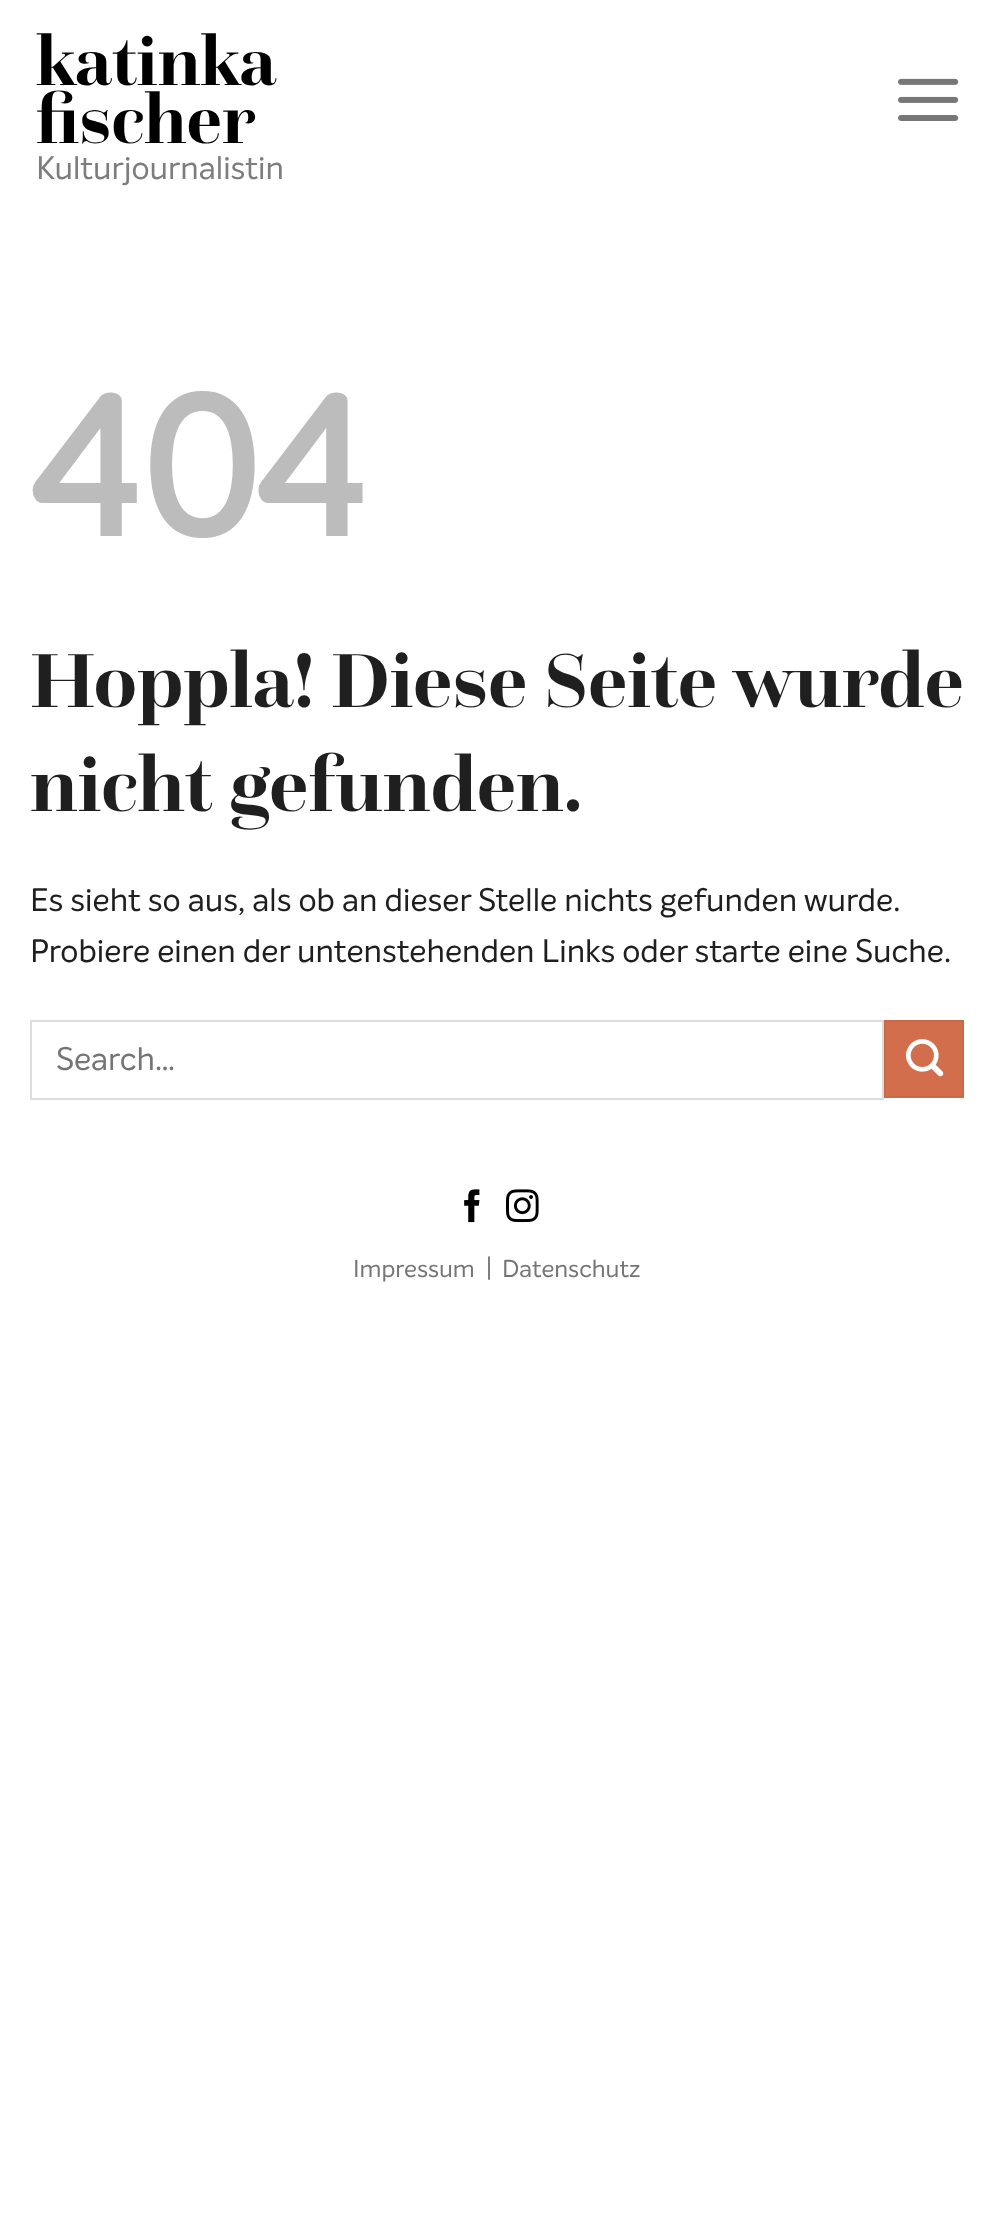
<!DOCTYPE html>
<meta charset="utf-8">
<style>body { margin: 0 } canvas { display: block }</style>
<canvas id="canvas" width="994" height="2225"></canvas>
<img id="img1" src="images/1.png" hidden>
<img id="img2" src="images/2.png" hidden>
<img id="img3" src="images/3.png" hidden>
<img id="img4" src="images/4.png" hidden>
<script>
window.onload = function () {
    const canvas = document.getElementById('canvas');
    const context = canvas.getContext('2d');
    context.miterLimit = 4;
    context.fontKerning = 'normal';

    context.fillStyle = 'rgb(255, 255, 255)';
    context.fillRect(0, 0, 994, 2225);
    context.drawImage(document.getElementById('img1'), 898, 78, 61, 43);
    context.strokeStyle = 'rgb(221, 221, 221)';
    context.lineWidth = 2;
    context.strokeRect(31, 1021, 852, 78);
    context.fillStyle = 'rgb(210, 110, 75)';
    context.beginPath();
    context.rect(885, 1021, 78, 76);
    context.fill();
    context.strokeStyle = 'rgb(200, 105, 71)';
    context.stroke();
    context.drawImage(document.getElementById('img2'), 906, 1039, 38, 38);
    context.drawImage(document.getElementById('img3'), 464, 1189, 16, 34);
    context.drawImage(document.getElementById('img4'), 506, 1189, 33, 34);
    context.font = 'bold 72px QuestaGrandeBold';
    context.fillStyle = 'rgb(0, 0, 0)';
    context.fillText('katinka', 36, 85);
    context.fillText('fischer', 36, 143);
    context.font = '32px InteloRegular';
    context.fillStyle = 'rgb(125, 125, 125)';
    context.fillText('Kulturjournalistin', 36, 179);
    context.font = 'bold 192px InteloRegular';
    context.fillStyle = 'rgb(188, 188, 188)';
    context.fillText('404', 30, 536);
    context.font = 'bold 80px QuestaGrandeBold';
    context.fillStyle = 'rgb(31, 31, 31)';
    context.fillText('Hoppla! Diese Seite wurde', 30, 707);
    context.fillText('nicht gefunden.', 30, 811);
    context.font = '32px InteloRegular';
    context.fillText('Es sieht so aus, als ob an dieser Stelle nichts gefunden wurde.', 30, 911);
    context.fillText('Probiere einen der untenstehenden Links oder starte eine Suche.', 30, 962);
    context.fillStyle = 'rgb(117, 117, 117)';
    context.fillText('Search…', 56, 1070);
    context.font = '24px InteloRegular';
    context.fillText('Impressum', 353, 1277);
    context.fillText('|', 486, 1277);
    context.fillText('Datenschutz', 502, 1277);
};
</script>
